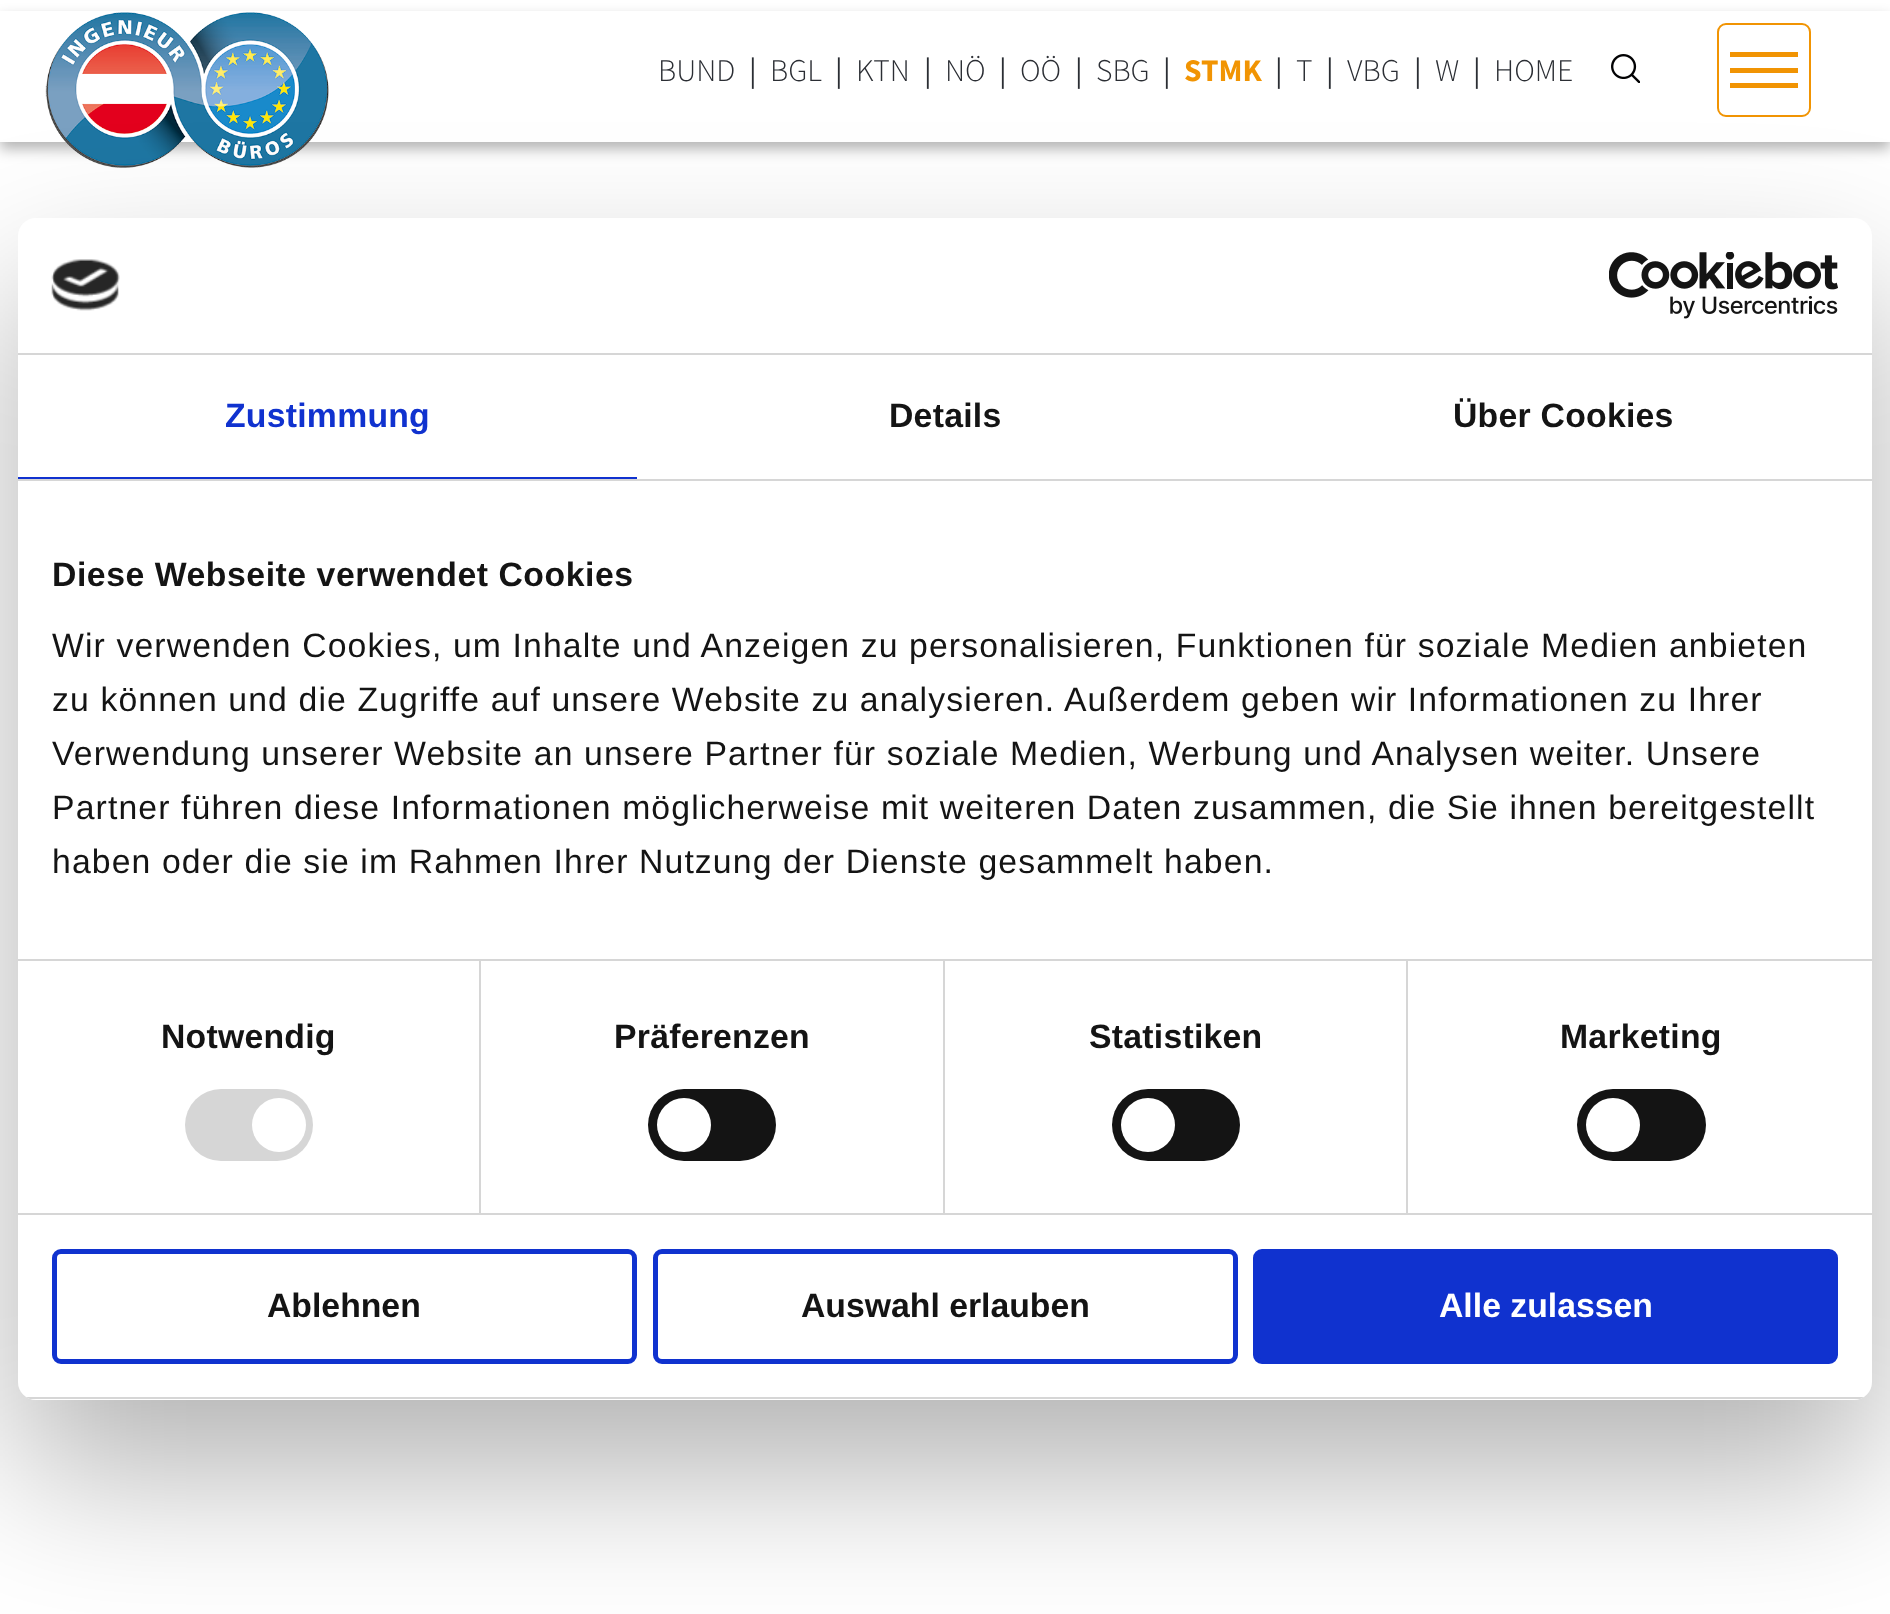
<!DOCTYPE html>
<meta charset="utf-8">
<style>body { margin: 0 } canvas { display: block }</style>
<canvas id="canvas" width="1890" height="1614"></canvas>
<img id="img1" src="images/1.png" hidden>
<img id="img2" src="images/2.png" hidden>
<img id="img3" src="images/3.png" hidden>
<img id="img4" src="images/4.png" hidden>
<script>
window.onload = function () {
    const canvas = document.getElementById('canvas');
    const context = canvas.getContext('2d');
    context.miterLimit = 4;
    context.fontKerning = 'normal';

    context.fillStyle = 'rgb(255, 255, 255)';
    context.fillRect(0, 0, 1890, 1614);
    context.save();
    context.beginPath();
    context.moveTo(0, 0);
    context.lineTo(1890, 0);
    context.lineTo(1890, 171);
    context.lineTo(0, 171);
    context.closePath();
    context.moveTo(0, 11);
    context.lineTo(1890, 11);
    context.lineTo(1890, 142);
    context.lineTo(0, 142);
    context.closePath();
    context.clip('evenodd');
    context.fillStyle = 'rgba(0, 0, 0, 0.29)';
    context.filter = 'blur(7px)';
    context.beginPath();
    context.rect(0, 18, 1890, 131);
    context.fill();
    context.filter = 'none';
    context.restore();
    context.drawImage(document.getElementById('img1'), 45, 12, 284, 156);
    context.drawImage(document.getElementById('img2'), 1611, 54, 29, 29);
    context.beginPath();
    context.roundRect(1718, 24, 92, 92, 8);
    context.strokeStyle = 'rgb(241, 148, 3)';
    context.lineWidth = 2;
    context.stroke();
    context.fillStyle = 'rgb(241, 148, 3)';
    context.fillRect(1730, 52, 68, 5);
    context.fillRect(1730, 68, 68, 5);
    context.fillRect(1730, 83, 68, 5);
    context.fillStyle = 'rgba(0, 0, 0, 0.3)';
    context.filter = 'blur(76.5px)';
    context.beginPath();
    context.roundRect(18, 290, 1854, 1182, 18);
    context.fill();
    context.filter = 'none';
    context.fillStyle = 'rgb(255, 255, 255)';
    context.beginPath();
    context.roundRect(18, 218, 1854, 1182, 18);
    context.fill();
    context.fillStyle = 'rgb(214, 214, 214)';
    context.fillRect(18, 353, 1854, 2);
    context.drawImage(document.getElementById('img3'), 51, 259, 69, 52);
    context.drawImage(document.getElementById('img4'), 1609, 252, 229, 67);
    context.fillRect(18, 479, 1854, 2);
    context.fillStyle = 'rgb(16, 50, 207)';
    context.fillRect(18, 477, 619, 2);
    context.fillStyle = 'rgb(214, 214, 214)';
    context.fillRect(18, 959, 1854, 2);
    context.fillRect(18, 1213, 1854, 2);
    context.fillRect(479, 961, 2, 252);
    context.beginPath();
    context.roundRect(185, 1089, 128, 72, 36);
    context.fill();
    context.fillStyle = 'rgb(255, 255, 255)';
    context.beginPath();
    context.arc(279, 1125, 27, 0, 2 * Math.PI);
    context.fill();
    context.fillStyle = 'rgb(214, 214, 214)';
    context.fillRect(943, 961, 2, 252);
    context.fillStyle = 'rgb(20, 20, 20)';
    context.beginPath();
    context.roundRect(648, 1089, 128, 72, 36);
    context.fill();
    context.fillStyle = 'rgb(255, 255, 255)';
    context.beginPath();
    context.arc(684, 1125, 27, 0, 2 * Math.PI);
    context.fill();
    context.fillStyle = 'rgb(214, 214, 214)';
    context.fillRect(1406, 961, 2, 252);
    context.fillStyle = 'rgb(20, 20, 20)';
    context.beginPath();
    context.roundRect(1112, 1089, 128, 72, 36);
    context.fill();
    context.fillStyle = 'rgb(255, 255, 255)';
    context.beginPath();
    context.arc(1148, 1125, 27, 0, 2 * Math.PI);
    context.fill();
    context.fillStyle = 'rgb(20, 20, 20)';
    context.beginPath();
    context.roundRect(1577, 1089, 129, 72, 36);
    context.fill();
    context.fillStyle = 'rgb(255, 255, 255)';
    context.beginPath();
    context.arc(1613, 1125, 27, 0, 2 * Math.PI);
    context.fill();
    context.save();
    context.beginPath();
    context.roundRect(18, 218, 1854, 1182, 18);
    context.clip();
    context.fillStyle = 'rgb(214, 214, 214)';
    context.fillRect(18, 1397, 1854, 2);
    context.restore();
    context.beginPath();
    context.roundRect(54.5, 1251.5, 580, 110, 6.5);
    context.strokeStyle = 'rgb(16, 50, 207)';
    context.lineWidth = 5;
    context.stroke();
    context.beginPath();
    context.roundRect(655.5, 1251.5, 580, 110, 6.5);
    context.stroke();
    context.fillStyle = 'rgb(16, 50, 207)';
    context.beginPath();
    context.roundRect(1255.5, 1251.5, 580, 110, 6.5);
    context.fill();
    context.stroke();
    context.font = '300 31.5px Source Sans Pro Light';
    context.fillStyle = 'rgb(43, 46, 52)';
    context.fillText('BUND', 658, 81);
    context.font = '31.5px Source Sans Pro';
    context.fillText('|', 749, 81);
    context.font = '300 31.5px Source Sans Pro Light';
    context.fillText('BGL', 770, 81);
    context.font = '31.5px Source Sans Pro';
    context.fillText('|', 835, 81);
    context.font = '300 31.5px Source Sans Pro Light';
    context.fillText('KTN', 856, 81);
    context.font = '31.5px Source Sans Pro';
    context.fillText('|', 924, 81);
    context.font = '300 31.5px Source Sans Pro Light';
    context.fillText('NÖ', 945, 81);
    context.font = '31.5px Source Sans Pro';
    context.fillText('|', 999, 81);
    context.font = '300 31.5px Source Sans Pro Light';
    context.fillText('OÖ', 1020, 81);
    context.font = '31.5px Source Sans Pro';
    context.fillText('|', 1075, 81);
    context.font = '300 31.5px Source Sans Pro Light';
    context.fillText('SBG', 1096, 81);
    context.font = '31.5px Source Sans Pro';
    context.fillText('|', 1163, 81);
    context.font = 'bold 31.5px Source Sans Pro';
    context.fillStyle = 'rgb(241, 148, 3)';
    context.fillText('STMK', 1184, 81);
    context.font = '31.5px Source Sans Pro';
    context.fillStyle = 'rgb(43, 46, 52)';
    context.fillText('|', 1275, 81);
    context.font = '300 31.5px Source Sans Pro Light';
    context.fillText('T', 1296, 81);
    context.font = '31.5px Source Sans Pro';
    context.fillText('|', 1326, 81);
    context.font = '300 31.5px Source Sans Pro Light';
    context.fillText('VBG', 1347, 81);
    context.font = '31.5px Source Sans Pro';
    context.fillText('|', 1414, 81);
    context.font = '300 31.5px Source Sans Pro Light';
    context.fillText('W', 1435, 81);
    context.font = '31.5px Source Sans Pro';
    context.fillText('|', 1473, 81);
    context.font = '300 31.5px Source Sans Pro Light';
    context.fillText('HOME', 1494, 81);
    context.letterSpacing = '0.25px';
    context.font = 'bold 33.75px Liberation Sans';
    context.fillStyle = 'rgb(16, 50, 207)';
    context.fillText('Zustimmung', 225, 427);
    context.fillStyle = 'rgb(20, 20, 20)';
    context.fillText('Details', 889, 427);
    context.fillText('Über Cookies', 1453, 427);
    context.letterSpacing = '0.55px';
    context.fillText('Diese Webseite verwendet Cookies', 52, 586);
    context.letterSpacing = '1.12px';
    context.font = '33.75px Liberation Sans';
    context.fillText('Wir verwenden Cookies, um Inhalte und Anzeigen zu personalisieren, Funktionen für soziale Medien anbieten', 52, 657);
    context.fillText('zu können und die Zugriffe auf unsere Website zu analysieren. Außerdem geben wir Informationen zu Ihrer', 52, 711);
    context.fillText('Verwendung unserer Website an unsere Partner für soziale Medien, Werbung und Analysen weiter. Unsere', 52, 765);
    context.fillText('Partner führen diese Informationen möglicherweise mit weiteren Daten zusammen, die Sie ihnen bereitgestellt', 52, 819);
    context.fillText('haben oder die sie im Rahmen Ihrer Nutzung der Dienste gesammelt haben.', 52, 873);
    context.letterSpacing = '0.25px';
    context.font = 'bold 33.75px Liberation Sans';
    context.fillText('Notwendig', 161, 1048);
    context.fillText('Präferenzen', 614, 1048);
    context.fillText('Statistiken', 1089, 1048);
    context.fillText('Marketing', 1560, 1048);
    context.letterSpacing = '0px';
    context.fillText('Ablehnen', 267, 1317);
    context.fillText('Auswahl erlauben', 801, 1317);
    context.fillStyle = 'rgb(255, 255, 255)';
    context.fillText('Alle zulassen', 1439, 1317);
};
</script>
